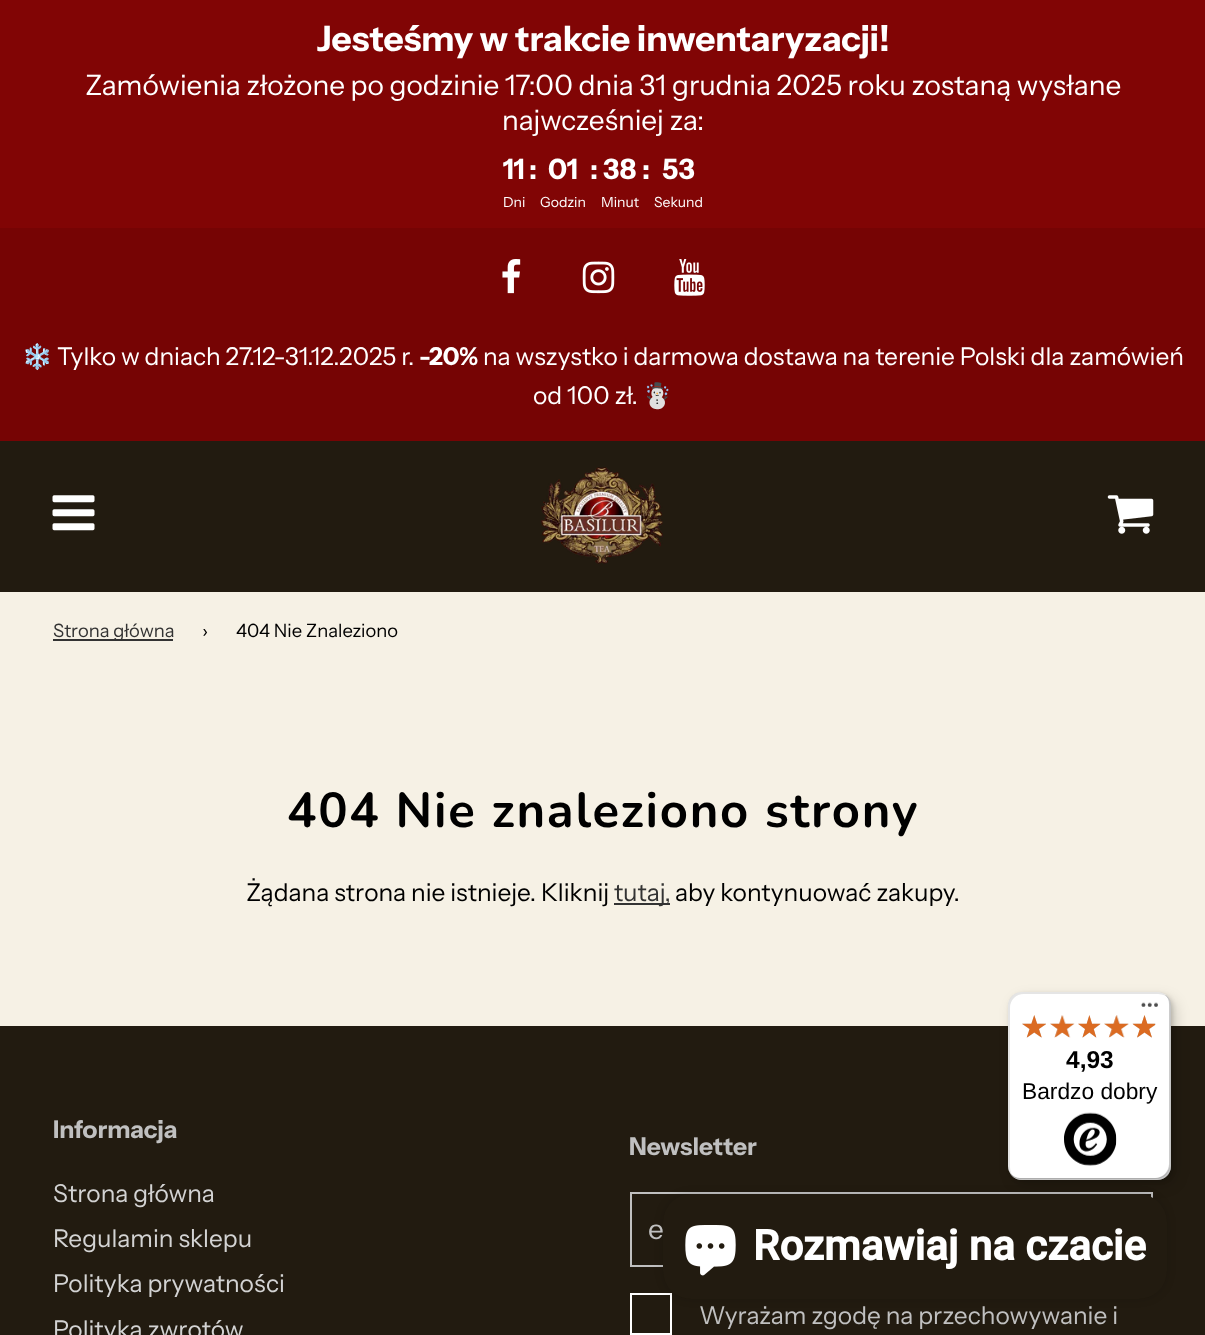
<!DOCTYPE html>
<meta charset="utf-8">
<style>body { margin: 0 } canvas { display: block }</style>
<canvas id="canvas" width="1205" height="1335"></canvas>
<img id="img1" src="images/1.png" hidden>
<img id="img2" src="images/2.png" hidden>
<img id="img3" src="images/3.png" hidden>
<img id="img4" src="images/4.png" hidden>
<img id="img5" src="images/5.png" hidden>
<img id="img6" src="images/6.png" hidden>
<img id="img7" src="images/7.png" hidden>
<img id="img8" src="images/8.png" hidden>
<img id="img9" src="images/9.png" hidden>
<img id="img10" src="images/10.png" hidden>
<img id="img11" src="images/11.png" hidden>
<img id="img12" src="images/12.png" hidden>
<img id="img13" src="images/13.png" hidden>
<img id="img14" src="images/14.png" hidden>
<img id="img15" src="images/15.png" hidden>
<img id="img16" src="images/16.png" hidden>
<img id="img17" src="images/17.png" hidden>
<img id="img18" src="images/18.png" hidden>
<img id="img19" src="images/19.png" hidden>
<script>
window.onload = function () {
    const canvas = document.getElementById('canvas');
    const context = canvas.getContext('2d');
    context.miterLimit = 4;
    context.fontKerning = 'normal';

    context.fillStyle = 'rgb(246, 241, 229)';
    context.fillRect(0, 0, 1205, 1335);
    context.fillStyle = 'rgb(129, 5, 5)';
    context.fillRect(0, 0, 1205, 228);
    context.fillStyle = 'rgb(118, 4, 4)';
    context.fillRect(0, 228, 1205, 213);
    context.drawImage(document.getElementById('img1'), 502, 259, 19, 35);
    context.drawImage(document.getElementById('img2'), 582, 261, 33, 33);
    context.drawImage(document.getElementById('img3'), 674, 259, 31, 37);
    context.fillStyle = 'rgb(34, 27, 16)';
    context.fillRect(0, 441, 1205, 151);
    context.drawImage(document.getElementById('img4'), 52, 495, 43, 36);
    context.drawImage(document.getElementById('img5'), 540, 467, 123, 97);
    context.drawImage(document.getElementById('img6'), 1107, 495, 47, 39);
    context.fillStyle = 'rgb(51, 51, 51)';
    context.fillRect(53, 639, 120, 2);
    context.fillRect(614, 903, 56, 2);
    context.fillStyle = 'rgb(34, 27, 16)';
    context.fillRect(0, 1026, 1205, 309);
    context.strokeStyle = 'rgb(192, 192, 192)';
    context.lineWidth = 2;
    context.strokeRect(631, 1193, 521, 73);
    context.strokeStyle = 'rgb(255, 255, 255)';
    context.strokeRect(631, 1294, 40, 40);
    context.fillStyle = 'rgba(0, 0, 0, 0.15)';
    context.filter = 'blur(7px)';
    context.beginPath();
    context.roundRect(1013, 998, 163, 187, 14);
    context.fill();
    context.filter = 'none';
    context.filter = 'blur(2px)';
    context.beginPath();
    context.roundRect(1010, 994, 163, 187, 14);
    context.fill();
    context.filter = 'none';
    context.fillStyle = 'rgb(255, 255, 255)';
    context.beginPath();
    context.roundRect(1008, 992, 163, 188, 14);
    context.fill();
    context.fillStyle = 'rgba(0, 0, 0, 0.1)';
    context.beginPath();
    context.moveTo(1024, 994);
    context.lineTo(1158, 994);
    context.bezierCurveTo(1163, 994, 1167, 996, 1170, 1000);
    context.bezierCurveTo(1167, 995, 1163, 992, 1157, 992);
    context.lineTo(1022, 992);
    context.bezierCurveTo(1014, 992, 1008, 998, 1008, 1006);
    context.lineTo(1008, 1166);
    context.bezierCurveTo(1008, 1172, 1011, 1176, 1016, 1179);
    context.bezierCurveTo(1012, 1176, 1010, 1172, 1010, 1167);
    context.lineTo(1010, 1008);
    context.bezierCurveTo(1010, 1000, 1016, 994, 1024, 994);
    context.closePath();
    context.fill();
    context.fillStyle = 'rgba(0, 0, 0, 0.2)';
    context.beginPath();
    context.moveTo(1010, 1173);
    context.bezierCurveTo(1012, 1177, 1017, 1180, 1022, 1180);
    context.lineTo(1157, 1180);
    context.bezierCurveTo(1165, 1180, 1171, 1174, 1171, 1166);
    context.lineTo(1171, 1006);
    context.bezierCurveTo(1171, 1001, 1169, 997, 1165, 995);
    context.bezierCurveTo(1168, 997, 1169, 1001, 1169, 1004);
    context.lineTo(1169, 1164);
    context.bezierCurveTo(1169, 1171, 1163, 1178, 1155, 1178);
    context.lineTo(1020, 1178);
    context.bezierCurveTo(1016, 1178, 1013, 1176, 1010, 1173);
    context.closePath();
    context.fill();
    context.fillStyle = 'rgba(50, 50, 50, 0.2)';
    context.beginPath();
    context.moveTo(1009, 1172);
    context.bezierCurveTo(1012, 1177, 1016, 1180, 1022, 1180);
    context.lineTo(1157, 1180);
    context.bezierCurveTo(1165, 1180, 1171, 1174, 1171, 1166);
    context.lineTo(1171, 1006);
    context.bezierCurveTo(1171, 1001, 1169, 997, 1165, 995);
    context.bezierCurveTo(1168, 997, 1170, 1001, 1170, 1005);
    context.lineTo(1170, 1164);
    context.bezierCurveTo(1170, 1172, 1163, 1178, 1156, 1178);
    context.lineTo(1021, 1178);
    context.bezierCurveTo(1016, 1178, 1012, 1176, 1009, 1172);
    context.closePath();
    context.fill();
    context.fillStyle = 'rgba(255, 255, 255, 0.3)';
    context.beginPath();
    context.moveTo(1011, 1174);
    context.bezierCurveTo(1013, 1178, 1017, 1180, 1022, 1180);
    context.lineTo(1157, 1180);
    context.bezierCurveTo(1165, 1180, 1171, 1174, 1171, 1166);
    context.lineTo(1171, 1006);
    context.bezierCurveTo(1171, 1001, 1169, 997, 1166, 995);
    context.bezierCurveTo(1168, 998, 1170, 1001, 1170, 1005);
    context.lineTo(1170, 1165);
    context.bezierCurveTo(1170, 1172, 1164, 1179, 1156, 1179);
    context.lineTo(1021, 1179);
    context.bezierCurveTo(1017, 1179, 1013, 1177, 1011, 1174);
    context.closePath();
    context.fill();
    context.drawImage(document.getElementById('img7'), 1141, 1002, 17, 5);
    context.drawImage(document.getElementById('img8'), 1022, 1015, 24, 23);
    context.drawImage(document.getElementById('img9'), 1050, 1015, 24, 23);
    context.drawImage(document.getElementById('img10'), 1078, 1015, 23, 23);
    context.drawImage(document.getElementById('img11'), 1104, 1015, 25, 23);
    context.drawImage(document.getElementById('img12'), 1133, 1015, 23, 23);
    context.drawImage(document.getElementById('img13'), 1022, 1015, 24, 23);
    context.drawImage(document.getElementById('img14'), 1050, 1015, 25, 23);
    context.drawImage(document.getElementById('img15'), 1078, 1015, 23, 23);
    context.drawImage(document.getElementById('img16'), 1104, 1015, 25, 23);
    context.drawImage(document.getElementById('img17'), 1132, 1015, 23, 23);
    context.drawImage(document.getElementById('img18'), 1064, 1112, 53, 54);
    context.fillStyle = 'rgba(0, 0, 0, 0.15)';
    context.filter = 'blur(4.5px)';
    context.beginPath();
    context.roundRect(663, 1194, 504, 105, 28);
    context.fill();
    context.filter = 'none';
    context.font = 'bold 35px Instrument Sans';
    context.fillStyle = 'rgb(255, 255, 255)';
    context.fillText('Jesteśmy w trakcie inwentaryzacji!', 317, 51);
    context.font = '28px Instrument Sans';
    context.fillText('Zamówienia złożone po godzinie 17:00 dnia 31 grudnia 2025 roku zostaną wysłane', 85, 95);
    context.fillText('najwcześniej za:', 502, 130);
    context.font = 'bold 28px Instrument Sans';
    context.fillText('11', 503, 179);
    context.font = '14px Instrument Sans';
    context.fillText('Dni', 503, 207);
    context.font = 'bold 28px Instrument Sans';
    context.fillText(':', 529, 179);
    context.fillText('01', 548, 179);
    context.font = '14px Instrument Sans';
    context.fillText('Godzin', 540, 207);
    context.font = 'bold 28px Instrument Sans';
    context.fillText(':', 590, 179);
    context.fillText('38', 603, 179);
    context.font = '14px Instrument Sans';
    context.fillText('Minut', 601, 207);
    context.font = 'bold 28px Instrument Sans';
    context.fillText(':', 642, 179);
    context.fillText('53', 662, 179);
    context.font = '14px Instrument Sans';
    context.fillText('Sekund', 654, 207);
    context.font = '24.5px Noto Color Emoji';
    context.fillText('❄️', 22, 365);
    context.font = '24.5px Instrument Sans';
    context.fillText('Tylko w dniach 27.12-31.12.2025 r.', 57, 365);
    context.font = 'bold 24.5px Instrument Sans';
    context.fillText('-20%', 419, 365);
    context.font = '24.5px Instrument Sans';
    context.fillText('na wszystko i darmowa dostawa na terenie Polski dla zamówień', 483, 365);
    context.fillText('od 100 zł.', 533, 404);
    context.font = '24.5px Noto Color Emoji';
    context.fillText('☃️', 642, 404);
    context.font = '18.4px Instrument Sans';
    context.fillStyle = 'rgb(51, 51, 51)';
    context.fillText('Strona główna', 53, 637);
    context.fillStyle = 'rgb(0, 0, 0)';
    context.fillText('›', 202, 637);
    context.fillText('404 Nie Znaleziono', 236, 637);
    context.letterSpacing = '1.75px';
    context.font = 'bold 49px Nunito';
    context.fillText('404 Nie znaleziono strony', 287, 827);
    context.letterSpacing = '0px';
    context.font = '24.5px Instrument Sans';
    context.fillText('Żądana strona nie istnieje. Kliknij', 246, 901);
    context.fillStyle = 'rgb(51, 51, 51)';
    context.fillText('tutaj,', 614, 901);
    context.fillStyle = 'rgb(0, 0, 0)';
    context.fillText('aby kontynuować zakupy.', 675, 901);
    context.font = 'bold 24.5px Instrument Sans';
    context.fillStyle = 'rgb(192, 192, 192)';
    context.fillText('Informacja', 53, 1138);
    context.font = '24.5px Instrument Sans';
    context.fillStyle = 'rgb(211, 211, 211)';
    context.fillText('Strona główna', 53, 1202);
    context.fillText('Regulamin sklepu', 53, 1247);
    context.fillText('Polityka prywatności', 53, 1292);
    context.fillText('Polityka zwrotów', 53, 1338);
    context.font = 'bold 24.5px Instrument Sans';
    context.fillStyle = 'rgb(192, 192, 192)';
    context.fillText('Newsletter', 629, 1155);
    context.font = '28px Instrument Sans';
    context.fillText('e', 648, 1239);
    context.font = '24.5px Instrument Sans';
    context.fillText('Wyrażam zgodę na przechowywanie i', 699, 1324);
    context.font = 'bold 24.5px Liberation Sans';
    context.fillStyle = 'rgb(0, 0, 0)';
    context.fillText('4,93', 1066, 1068);
    context.font = '22.75px Liberation Sans';
    context.fillText('Bardzo dobry', 1022, 1099);
    context.fillStyle = 'rgb(34, 27, 16)';
    context.beginPath();
    context.roundRect(663, 1194, 504, 105, 28);
    context.fill();
    context.drawImage(document.getElementById('img19'), 685, 1225, 51, 51);
    context.font = 'bold 42px Roboto';
    context.fillStyle = 'rgb(255, 255, 255)';
    context.fillText('Rozmawiaj na czacie', 753, 1260);
};
</script>
